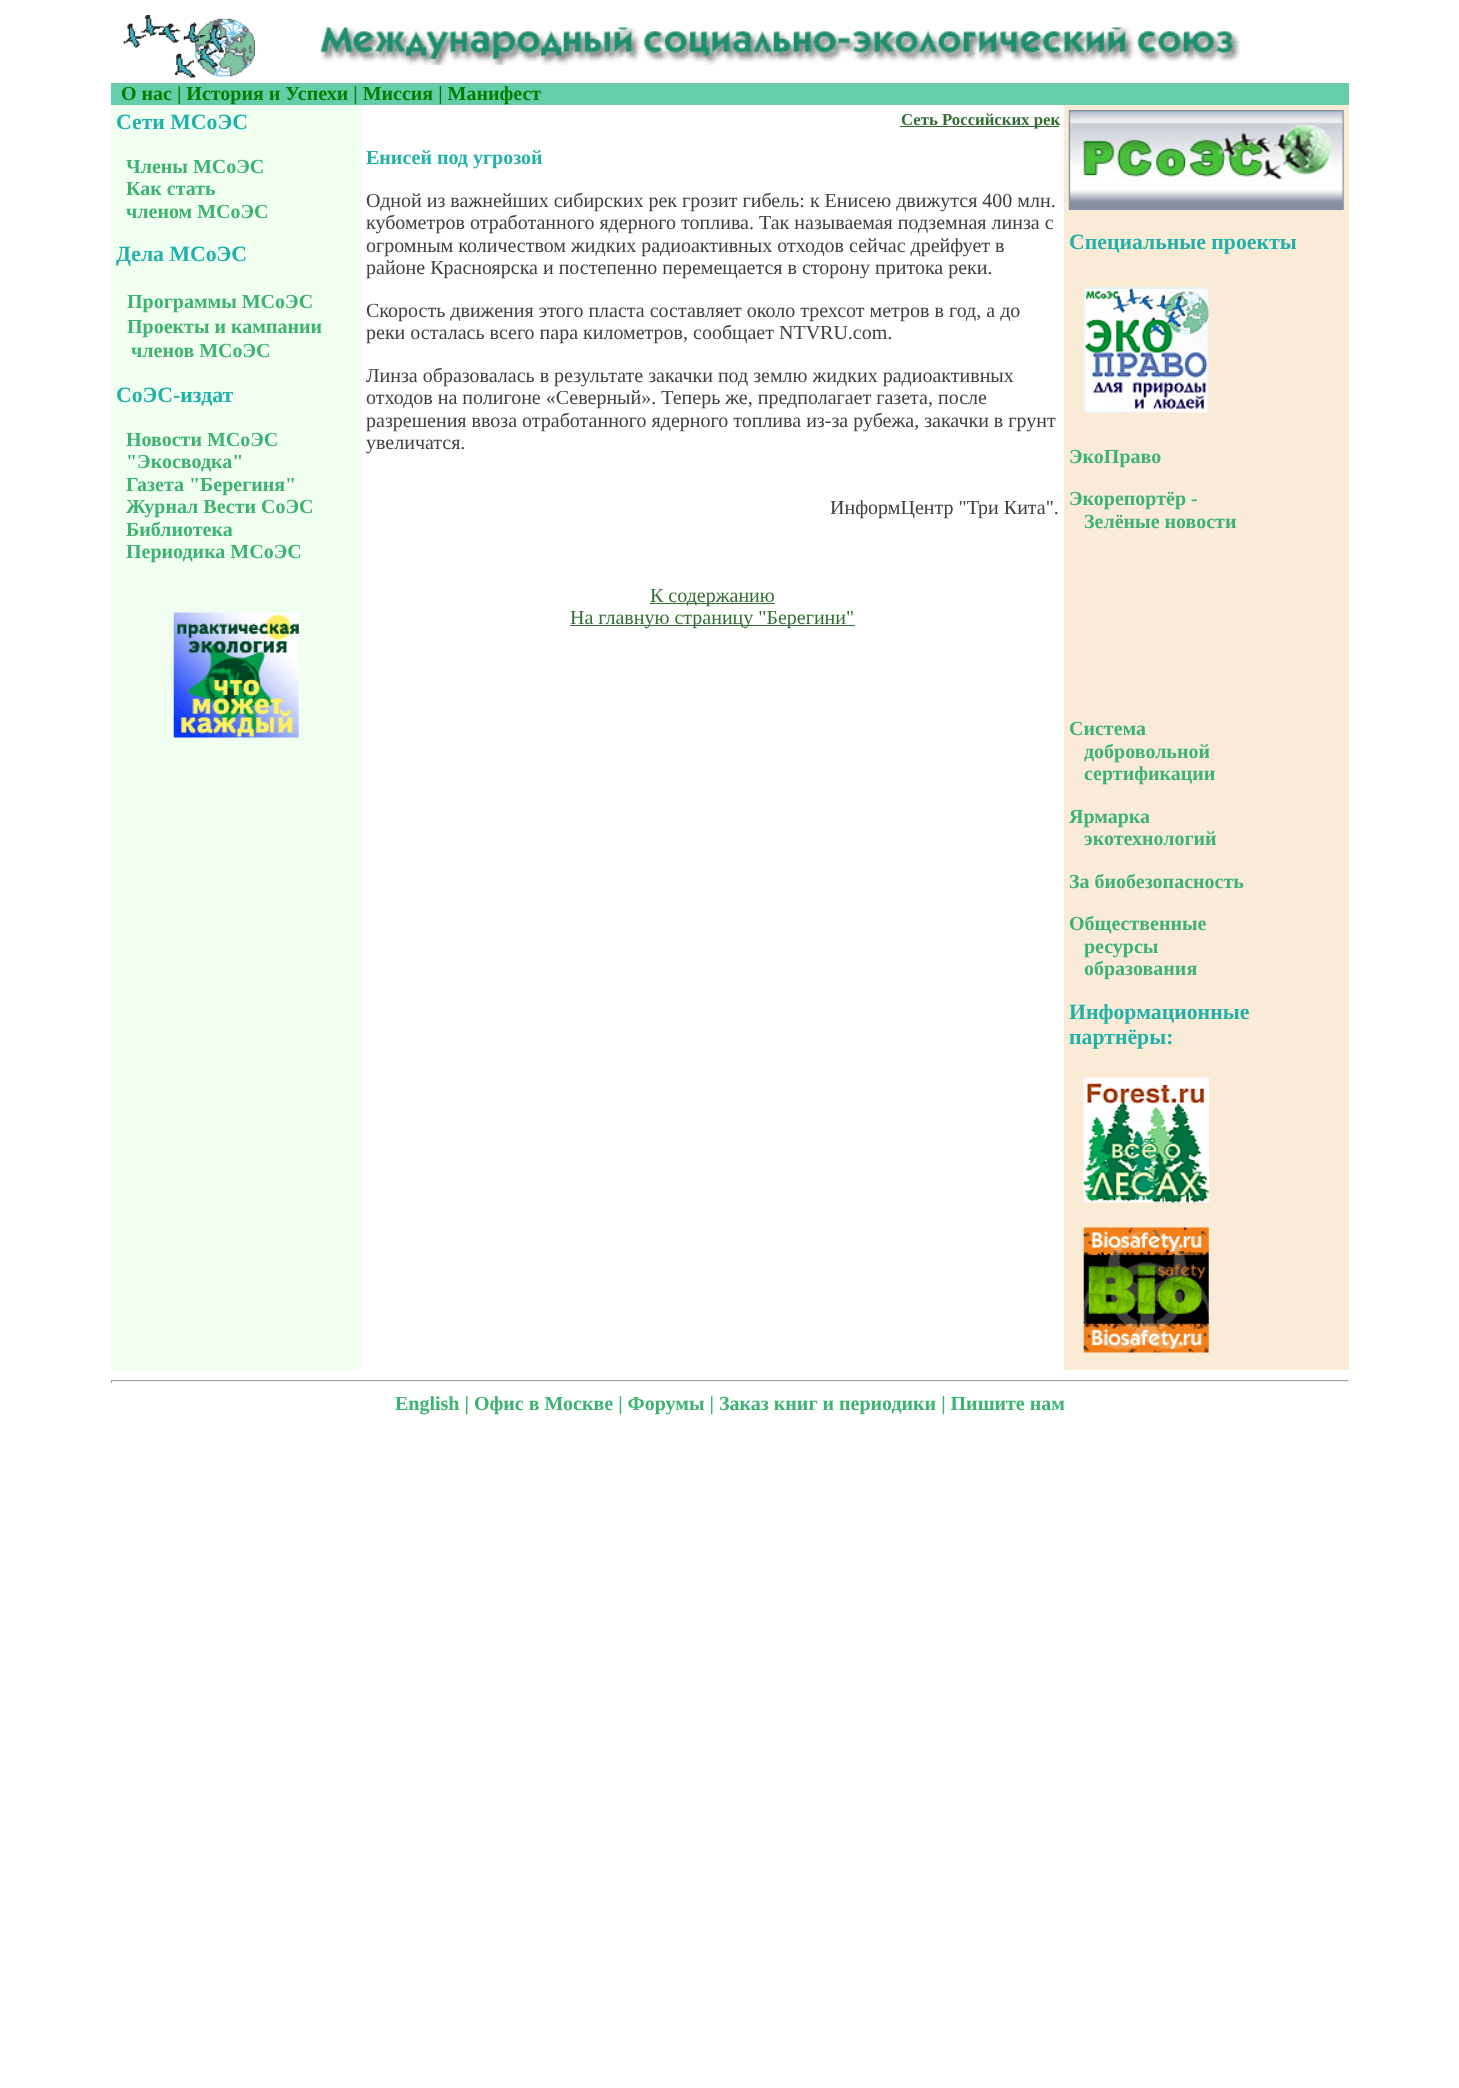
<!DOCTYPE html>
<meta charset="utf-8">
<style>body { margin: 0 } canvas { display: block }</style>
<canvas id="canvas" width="1459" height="2088"></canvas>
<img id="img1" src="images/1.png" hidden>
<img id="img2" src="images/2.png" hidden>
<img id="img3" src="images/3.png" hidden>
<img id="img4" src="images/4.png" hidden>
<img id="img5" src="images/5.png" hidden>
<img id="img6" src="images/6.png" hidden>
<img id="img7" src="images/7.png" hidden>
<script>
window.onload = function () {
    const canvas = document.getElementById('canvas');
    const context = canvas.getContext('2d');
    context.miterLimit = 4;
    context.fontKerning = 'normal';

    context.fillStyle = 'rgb(255, 255, 255)';
    context.fillRect(0, 0, 1459, 2088);
    context.drawImage(document.getElementById('img1'), 123, 15, 132, 63);
    context.drawImage(document.getElementById('img2'), 320, 27, 920, 38);
    context.fillStyle = 'rgb(102, 205, 170)';
    context.fillRect(111, 83, 1238, 22);
    context.fillStyle = 'rgb(240, 255, 240)';
    context.fillRect(111, 105, 250, 1265);
    context.drawImage(document.getElementById('img3'), 173, 612, 126, 126);
    context.fillStyle = 'rgb(52, 109, 52)';
    context.fillRect(900, 126, 159, 1);
    context.fillRect(650, 603, 125, 1);
    context.fillRect(570, 625, 285, 1);
    context.fillStyle = 'rgb(250, 235, 215)';
    context.fillRect(1064, 105, 285, 1265);
    context.drawImage(document.getElementById('img4'), 1068, 110, 276, 100);
    context.drawImage(document.getElementById('img5'), 1083, 287, 126, 126);
    context.drawImage(document.getElementById('img6'), 1083, 1077, 126, 126);
    context.drawImage(document.getElementById('img7'), 1083, 1227, 126, 126);
    context.fillStyle = 'rgb(159, 159, 159)';
    context.fillRect(111, 1380, 1238, 1);
    context.fillStyle = 'rgb(238, 238, 238)';
    context.fillRect(1348, 1380, 1, 3);
    context.fillRect(111, 1381, 1238, 1);
    context.fillStyle = 'rgb(159, 159, 159)';
    context.fillRect(111, 1380, 1, 3);
    context.font = 'bold 20px Liberation Serif';
    context.fillStyle = 'rgb(0, 128, 0)';
    context.fillText('О нас | История и Успехи | Миссия | Манифест', 121, 100);
    context.font = 'bold 21.75px Liberation Serif';
    context.fillStyle = 'rgb(32, 178, 170)';
    context.fillText('Сети МСоЭС', 116, 129);
    context.font = 'bold 20px Liberation Serif';
    context.fillStyle = 'rgb(60, 179, 113)';
    context.fillText('Члены МСоЭС', 126, 173);
    context.fillText('Как стать', 126, 195);
    context.fillText('членом МСоЭС', 126, 218);
    context.font = 'bold 21.75px Liberation Serif';
    context.fillStyle = 'rgb(32, 178, 170)';
    context.fillText('Дела МСоЭС', 116, 261);
    context.font = 'bold 20px Liberation Serif';
    context.fillStyle = 'rgb(60, 179, 113)';
    context.fillText('Программы МСоЭС', 127, 308);
    context.fillText('Проекты и кампании', 127, 333);
    context.fillText('членов МСоЭС', 131, 357);
    context.font = 'bold 21.75px Liberation Serif';
    context.fillStyle = 'rgb(32, 178, 170)';
    context.fillText('СоЭС-издат', 116, 402);
    context.font = 'bold 20px Liberation Serif';
    context.fillStyle = 'rgb(60, 179, 113)';
    context.fillText('Новости МСоЭС', 126, 446);
    context.fillText('"Экосводка"', 126, 468);
    context.fillText('Газета "Берегиня"', 126, 491);
    context.fillText('Журнал Вести СоЭС', 126, 513);
    context.fillText('Библиотека', 126, 536);
    context.fillText('Периодика МСоЭС', 126, 558);
    context.font = 'bold 16.75px Liberation Serif';
    context.fillStyle = 'rgb(52, 109, 52)';
    context.fillText('Сеть Российских рек', 901, 125);
    context.font = 'bold 20px Liberation Serif';
    context.fillStyle = 'rgb(32, 178, 170)';
    context.fillText('Енисей под угрозой', 366, 164);
    context.font = '20px Liberation Serif';
    context.fillStyle = 'rgb(64, 64, 64)';
    context.fillText('Одной из важнейших сибирских рек грозит гибель: к Енисею движутся 400 млн.', 366, 207);
    context.fillText('кубометров отработанного ядерного топлива. Так называемая подземная линза с', 366, 229);
    context.fillText('огромным количеством жидких радиоактивных отходов сейчас дрейфует в', 366, 252);
    context.fillText('районе Красноярска и постепенно перемещается в сторону притока реки.', 366, 274);
    context.fillText('Скорость движения этого пласта составляет около трехсот метров в год, а до', 366, 317);
    context.fillText('реки осталась всего пара километров, сообщает NTVRU.com.', 366, 339);
    context.fillText('Линза образовалась в результате закачки под землю жидких радиоактивных', 366, 382);
    context.fillText('отходов на полигоне «Северный». Теперь же, предполагает газета, после', 366, 404);
    context.fillText('разрешения ввоза отработанного ядерного топлива из-за рубежа, закачки в грунт', 366, 427);
    context.fillText('увеличатся.', 366, 449);
    context.fillText('ИнформЦентр "Три Кита".', 830, 514);
    context.fillStyle = 'rgb(52, 109, 52)';
    context.fillText('К содержанию', 650, 602);
    context.fillText('На главную страницу "Берегини"', 570, 624);
    context.font = 'bold 21.75px Liberation Serif';
    context.fillStyle = 'rgb(32, 178, 170)';
    context.fillText('Специальные проекты', 1069, 249);
    context.font = 'bold 20px Liberation Serif';
    context.fillStyle = 'rgb(60, 179, 113)';
    context.fillText('ЭкоПраво', 1069, 463);
    context.fillText('Экорепортёр -', 1069, 505);
    context.fillText('Зелёные новости', 1084, 528);
    context.fillText('Система', 1069, 735);
    context.fillText('добровольной', 1084, 758);
    context.fillText('сертификации', 1084, 780);
    context.fillText('Ярмарка', 1069, 823);
    context.fillText('экотехнологий', 1084, 845);
    context.fillText('За биобезопасность', 1069, 888);
    context.fillText('Общественные', 1069, 930);
    context.fillText('ресурсы', 1084, 953);
    context.fillText('образования', 1084, 975);
    context.font = 'bold 21.75px Liberation Serif';
    context.fillStyle = 'rgb(32, 178, 170)';
    context.fillText('Информационные', 1069, 1019);
    context.fillText('партнёры:', 1069, 1044);
    context.font = 'bold 20px Liberation Serif';
    context.fillStyle = 'rgb(60, 179, 113)';
    context.fillText('English | Офис в Москве | Форумы | Заказ книг и периодики | Пишите нам', 395, 1410);
};
</script>
